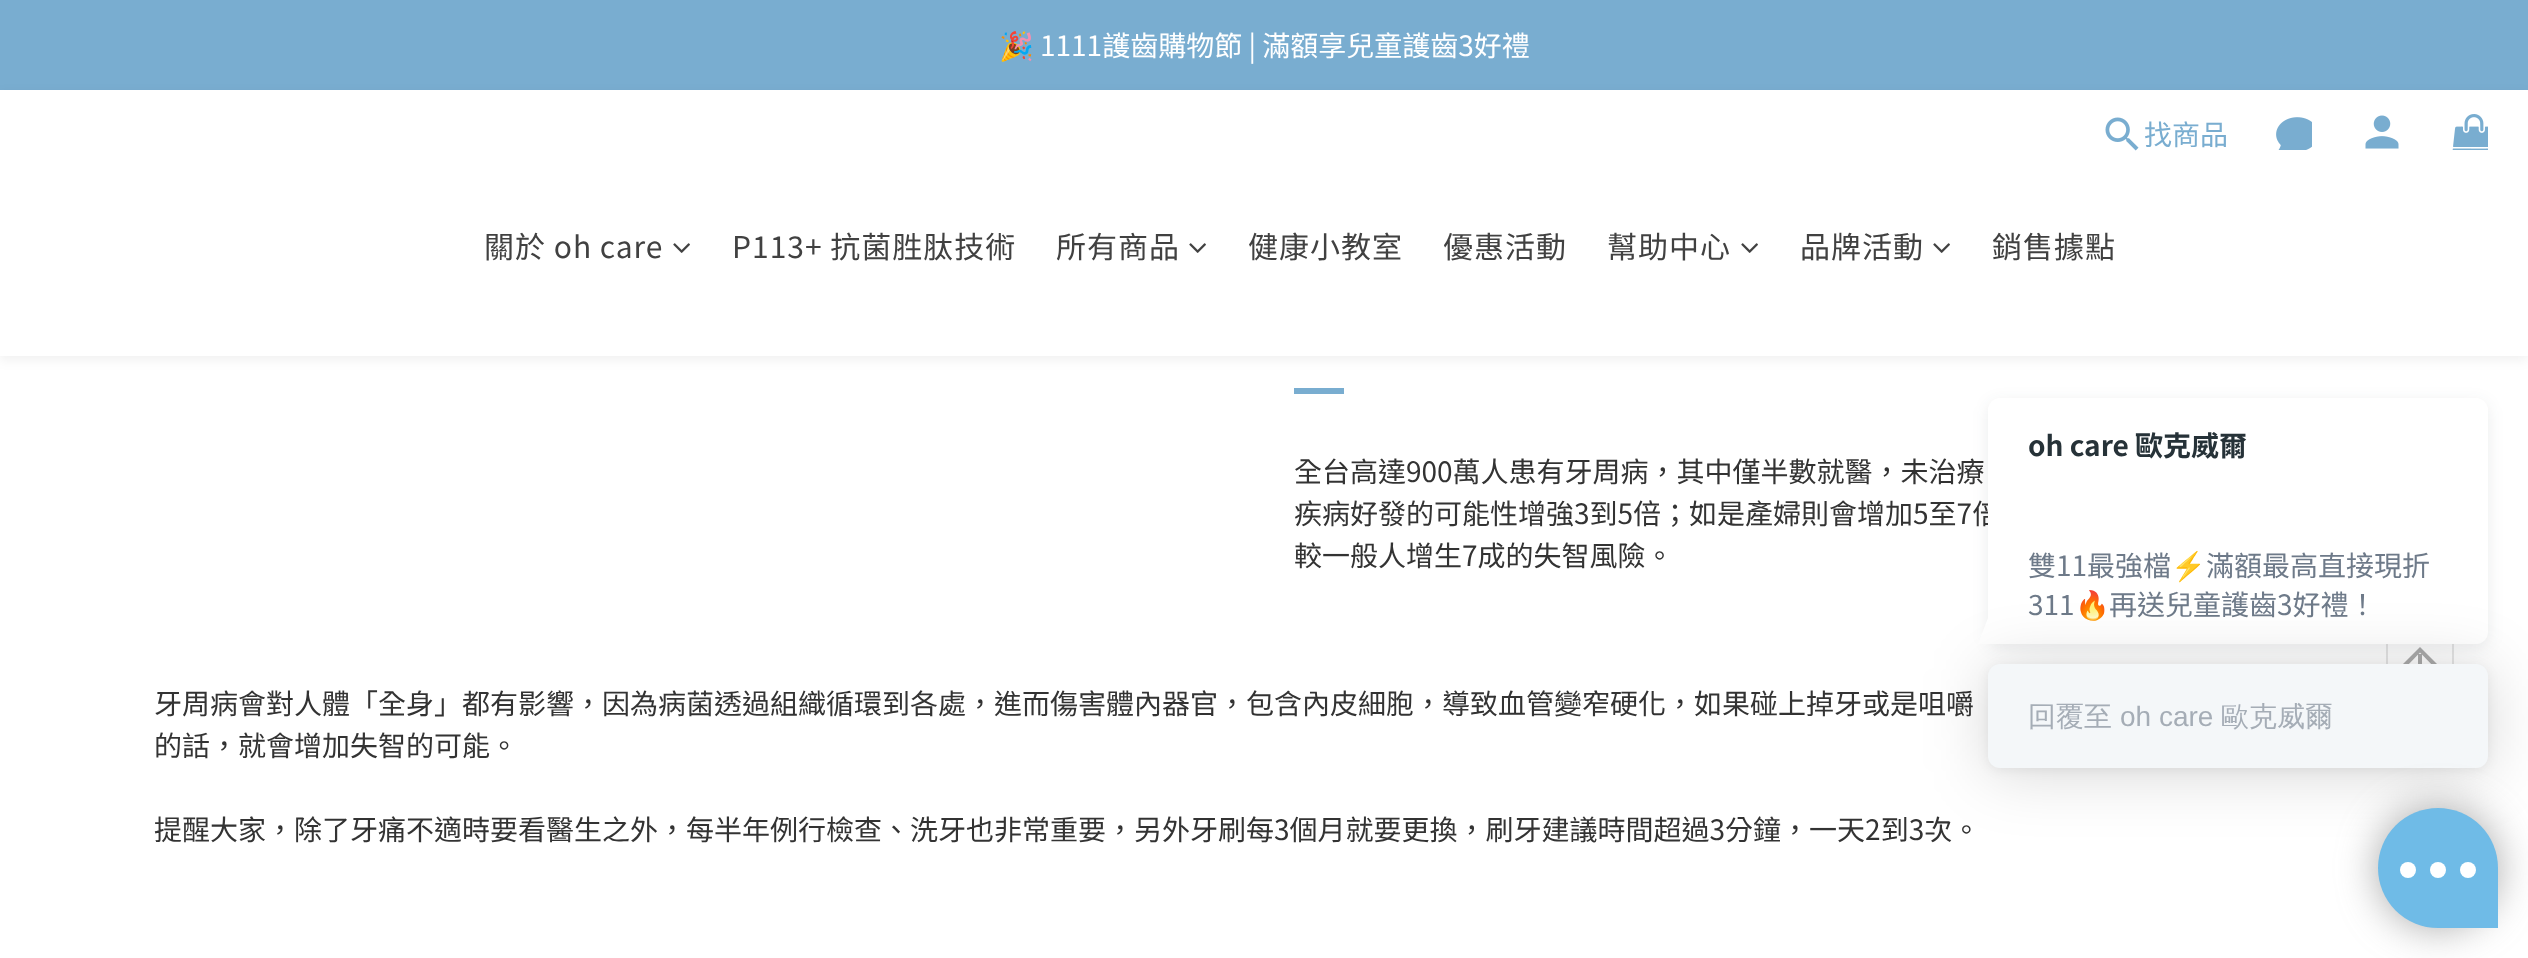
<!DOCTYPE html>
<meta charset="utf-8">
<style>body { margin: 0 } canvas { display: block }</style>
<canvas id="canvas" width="2528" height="958"></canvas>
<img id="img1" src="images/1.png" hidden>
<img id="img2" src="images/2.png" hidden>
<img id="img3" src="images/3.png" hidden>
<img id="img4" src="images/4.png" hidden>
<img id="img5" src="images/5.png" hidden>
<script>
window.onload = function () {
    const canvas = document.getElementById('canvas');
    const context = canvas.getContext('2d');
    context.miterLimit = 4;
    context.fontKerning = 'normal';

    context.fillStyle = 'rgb(255, 255, 255)';
    context.fillRect(0, 0, 2528, 958);
    context.fillStyle = 'rgb(121, 173, 208)';
    context.fillRect(0, 0, 2528, 90);
    context.fillStyle = 'rgba(0, 0, 0, 0.06)';
    context.filter = 'blur(6px)';
    context.beginPath();
    context.rect(0, 94, 2528, 266);
    context.fill();
    context.filter = 'none';
    context.fillStyle = 'rgb(255, 255, 255)';
    context.fillRect(0, 90, 2528, 266);
    context.drawImage(document.getElementById('img1'), 2105, 117, 34, 34);
    context.drawImage(document.getElementById('img2'), 2276, 117, 36, 33);
    context.drawImage(document.getElementById('img3'), 2365, 115, 34, 34);
    context.drawImage(document.getElementById('img4'), 2452, 114, 36, 36);
    context.drawImage(document.getElementById('img5'), 673, 243, 17, 10);
    context.drawImage(document.getElementById('img5'), 1189, 243, 17, 10);
    context.drawImage(document.getElementById('img5'), 1741, 243, 17, 10);
    context.drawImage(document.getElementById('img5'), 1933, 243, 17, 10);
    context.fillStyle = 'rgb(121, 173, 208)';
    context.fillRect(1294, 388, 50, 6);
    context.strokeStyle = 'rgb(230, 230, 230)';
    context.lineWidth = 2;
    context.strokeRect(2387, 631, 66, 66);
    context.fillStyle = 'rgb(173, 173, 173)';
    context.beginPath();
    context.moveTo(2420, 647);
    context.lineTo(2437, 664);
    context.lineTo(2434, 667);
    context.lineTo(2420, 652.5);
    context.closePath();
    context.moveTo(2403, 664);
    context.lineTo(2420, 647);
    context.lineTo(2420, 652.5);
    context.lineTo(2406, 667);
    context.closePath();
    context.fill();
    context.fillStyle = 'rgba(153, 153, 153, 0.8)';
    context.fillRect(2418, 654, 4, 10);
    context.fillStyle = 'rgba(35, 47, 53, 0.09)';
    context.filter = 'blur(8px)';
    context.beginPath();
    context.roundRect(1988, 402, 500, 246, 12);
    context.fill();
    context.filter = 'none';
    context.fillStyle = 'rgb(255, 255, 255)';
    context.beginPath();
    context.moveTo(1988, 644);
    context.lineTo(1978, 644);
    context.lineTo(1988, 618);
    context.closePath();
    context.fill();
    context.fillStyle = 'rgba(0, 0, 0, 0.06)';
    context.filter = 'blur(6px)';
    context.beginPath();
    context.roundRect(1988, 666, 500, 104, 12);
    context.fill();
    context.filter = 'none';
    context.font = '28px Noto Color Emoji';
    context.fillStyle = 'rgb(255, 255, 255)';
    context.fillText('🎉', 999, 56);
    context.font = '28px Noto Sans TC';
    context.fillText('1111護齒購物節 | 滿額享兒童護齒3好禮', 1040, 56);
    context.fillStyle = 'rgb(121, 173, 208)';
    context.fillText('找商品', 2144, 145);
    context.letterSpacing = '1px';
    context.font = '30px Noto Sans TC';
    context.fillStyle = 'rgb(65, 65, 65)';
    context.fillText('關於 oh care', 484, 258);
    context.fillText('P113+ 抗菌胜肽技術', 732, 258);
    context.fillText('所有商品', 1056, 258);
    context.fillText('健康小教室', 1248, 258);
    context.fillText('優惠活動', 1443, 258);
    context.fillText('幫助中心', 1607, 258);
    context.fillText('品牌活動', 1800, 258);
    context.fillText('銷售據點', 1992, 258);
    context.letterSpacing = '0px';
    context.font = '28px Noto Sans TC';
    context.fillStyle = 'rgb(51, 51, 51)';
    context.fillText('全台高達900萬人患有牙周病，其中僅半數就醫，未治療', 1294, 482);
    context.fillText('疾病好發的可能性增強3到5倍；如是產婦則會增加5至7倍', 1294, 524);
    context.fillText('較一般人增生7成的失智風險。', 1294, 566);
    context.fillText('牙周病會對人體「全身」都有影響，因為病菌透過組織循環到各處，進而傷害體內器官，包含內皮細胞，導致血管變窄硬化，如果碰上掉牙或是咀嚼', 154, 714);
    context.fillText('的話，就會增加失智的可能。', 154, 756);
    context.fillText('提醒大家，除了牙痛不適時要看醫生之外，每半年例行檢查、洗牙也非常重要，另外牙刷每3個月就要更換，刷牙建議時間超過3分鐘，一天2到3次。', 154, 840);
    context.fillStyle = 'rgb(255, 255, 255)';
    context.beginPath();
    context.roundRect(1988, 398, 500, 246, [12, 12, 12, 0]);
    context.fill();
    context.font = 'bold 28px Noto Sans TC';
    context.fillStyle = 'rgb(38, 50, 56)';
    context.fillText('oh care 歐克威爾', 2028, 456);
    context.font = '28px Noto Sans TC';
    context.fillStyle = 'rgb(110, 122, 137)';
    context.fillText('雙11最強檔', 2028, 576);
    context.font = '28px Noto Color Emoji';
    context.fillText('⚡', 2171, 576);
    context.font = '28px Noto Sans TC';
    context.fillText('滿額最高直接現折', 2206, 576);
    context.fillText('311', 2028, 615);
    context.font = '28px Noto Color Emoji';
    context.fillText('🔥', 2075, 615);
    context.font = '28px Noto Sans TC';
    context.fillText('再送兒童護齒3好禮！', 2109, 615);
    context.fillStyle = 'rgba(0, 0, 0, 0.16)';
    context.filter = 'blur(32px)';
    context.beginPath();
    context.roundRect(1988, 668, 500, 104, 12);
    context.fill();
    context.filter = 'none';
    context.fillStyle = 'rgb(244, 247, 249)';
    context.beginPath();
    context.roundRect(1988, 664, 500, 104, 12);
    context.fill();
    context.font = '500 28px WenQuanYi Zen Hei';
    context.fillStyle = 'rgb(165, 173, 182)';
    context.fillText('回覆至', 2028, 726);
    context.font = '28px Liberation Sans';
    context.fillText('oh care', 2120, 726);
    context.font = '500 28px WenQuanYi Zen Hei';
    context.fillText('歐克威爾', 2221, 726);
    context.fillStyle = 'rgba(119, 119, 119, 0.64)';
    context.filter = 'blur(20px)';
    context.beginPath();
    context.roundRect(2378, 808, 120, 120, 60);
    context.fill();
    context.filter = 'none';
    context.fillStyle = 'rgb(111, 187, 231)';
    context.beginPath();
    context.roundRect(2378, 808, 120, 120, [60, 60, 0, 60]);
    context.fill();
    context.fillStyle = 'rgb(255, 255, 255)';
    context.beginPath();
    context.arc(2408, 870, 8, 0, 2 * Math.PI);
    context.fill();
    context.beginPath();
    context.arc(2438, 870, 8, 0, 2 * Math.PI);
    context.fill();
    context.beginPath();
    context.arc(2468, 870, 8, 0, 2 * Math.PI);
    context.fill();
};
</script>
